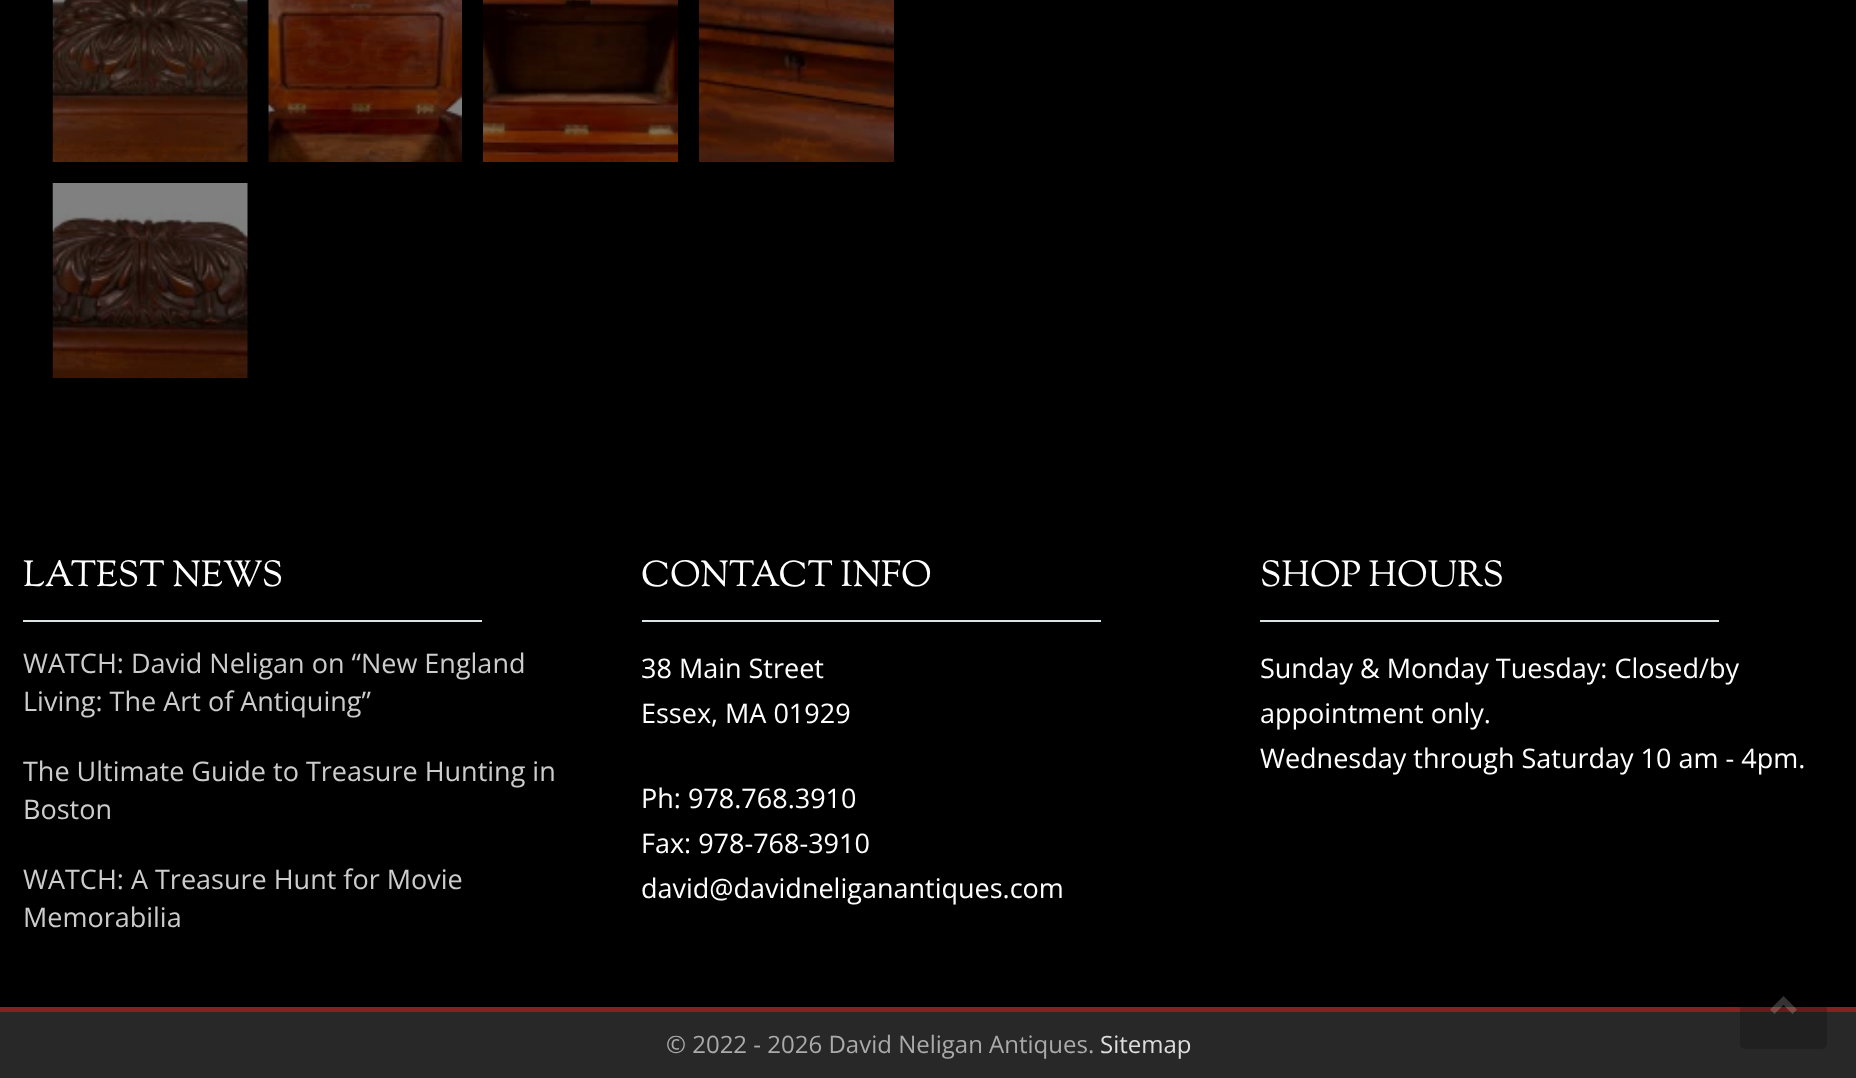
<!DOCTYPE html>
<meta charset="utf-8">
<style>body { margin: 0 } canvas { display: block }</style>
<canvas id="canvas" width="1856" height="1078"></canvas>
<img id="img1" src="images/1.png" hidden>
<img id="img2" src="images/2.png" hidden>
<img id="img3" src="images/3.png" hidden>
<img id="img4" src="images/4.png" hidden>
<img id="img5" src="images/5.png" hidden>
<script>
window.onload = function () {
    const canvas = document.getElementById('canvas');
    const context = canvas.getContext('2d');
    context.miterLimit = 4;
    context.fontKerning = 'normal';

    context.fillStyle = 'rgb(0, 0, 0)';
    context.fillRect(0, 0, 1856, 1078);
    context.drawImage(document.getElementById('img1'), 52, 0, 196, 162);
    context.drawImage(document.getElementById('img2'), 268, 0, 194, 162);
    context.drawImage(document.getElementById('img3'), 483, 0, 195, 162);
    context.drawImage(document.getElementById('img4'), 699, 0, 195, 162);
    context.drawImage(document.getElementById('img5'), 52, 183, 196, 195);
    context.fillStyle = 'rgb(218, 228, 229)';
    context.fillRect(23, 620, 459, 2);
    context.fillRect(642, 620, 459, 2);
    context.fillRect(1260, 620, 459, 2);
    context.fillStyle = 'rgb(40, 40, 40)';
    context.fillRect(0, 1012, 1856, 66);
    context.fillStyle = 'rgb(133, 33, 33)';
    context.fillRect(0, 1007, 1856, 5);
    context.fillStyle = 'rgba(0, 0, 0, 0.2)';
    context.beginPath();
    context.roundRect(1740, 962, 87, 87, 5);
    context.fill();
    context.fillStyle = 'rgba(255, 255, 255, 0.2)';
    context.beginPath();
    context.moveTo(1797, 1009.5);
    context.lineTo(1783.5, 996);
    context.lineTo(1770, 1009.5);
    context.lineTo(1774.5, 1014);
    context.lineTo(1783.5, 1005);
    context.lineTo(1792.5, 1014);
    context.closePath();
    context.fill();
    context.font = '36px Sorts Mill Goudy';
    context.fillStyle = 'rgb(255, 255, 255)';
    context.fillText('LATEST NEWS', 23, 586);
    context.font = '27px Open Sans';
    context.fillStyle = 'rgb(204, 204, 204)';
    context.fillText('WATCH: David Neligan on “New England', 23, 673);
    context.fillText('Living: The Art of Antiquing”', 23, 711);
    context.fillText('The Ultimate Guide to Treasure Hunting in', 23, 781);
    context.fillText('Boston', 23, 819);
    context.fillText('WATCH: A Treasure Hunt for Movie', 23, 889);
    context.fillText('Memorabilia', 23, 927);
    context.font = '36px Sorts Mill Goudy';
    context.fillStyle = 'rgb(255, 255, 255)';
    context.fillText('CONTACT INFO', 641, 586);
    context.font = '27px Open Sans';
    context.fillText('38 Main Street', 641, 678);
    context.fillText('Essex, MA 01929', 641, 723);
    context.fillText('Ph: 978.768.3910', 641, 808);
    context.fillText('Fax: 978-768-3910', 641, 853);
    context.fillText('david@davidneliganantiques.com', 641, 898);
    context.font = '36px Sorts Mill Goudy';
    context.fillText('SHOP HOURS', 1260, 586);
    context.font = '27px Open Sans';
    context.fillText('Sunday & Monday Tuesday: Closed/by', 1260, 678);
    context.fillText('appointment only.', 1260, 723);
    context.fillText('Wednesday through Saturday 10 am - 4pm.', 1260, 768);
    context.font = '24px Open Sans';
    context.fillStyle = 'rgb(170, 170, 170)';
    context.fillText('© 2022 - 2026 David Neligan Antiques.', 666, 1053);
    context.fillStyle = 'rgb(221, 221, 221)';
    context.fillText('Sitemap', 1100, 1053);
};
</script>
